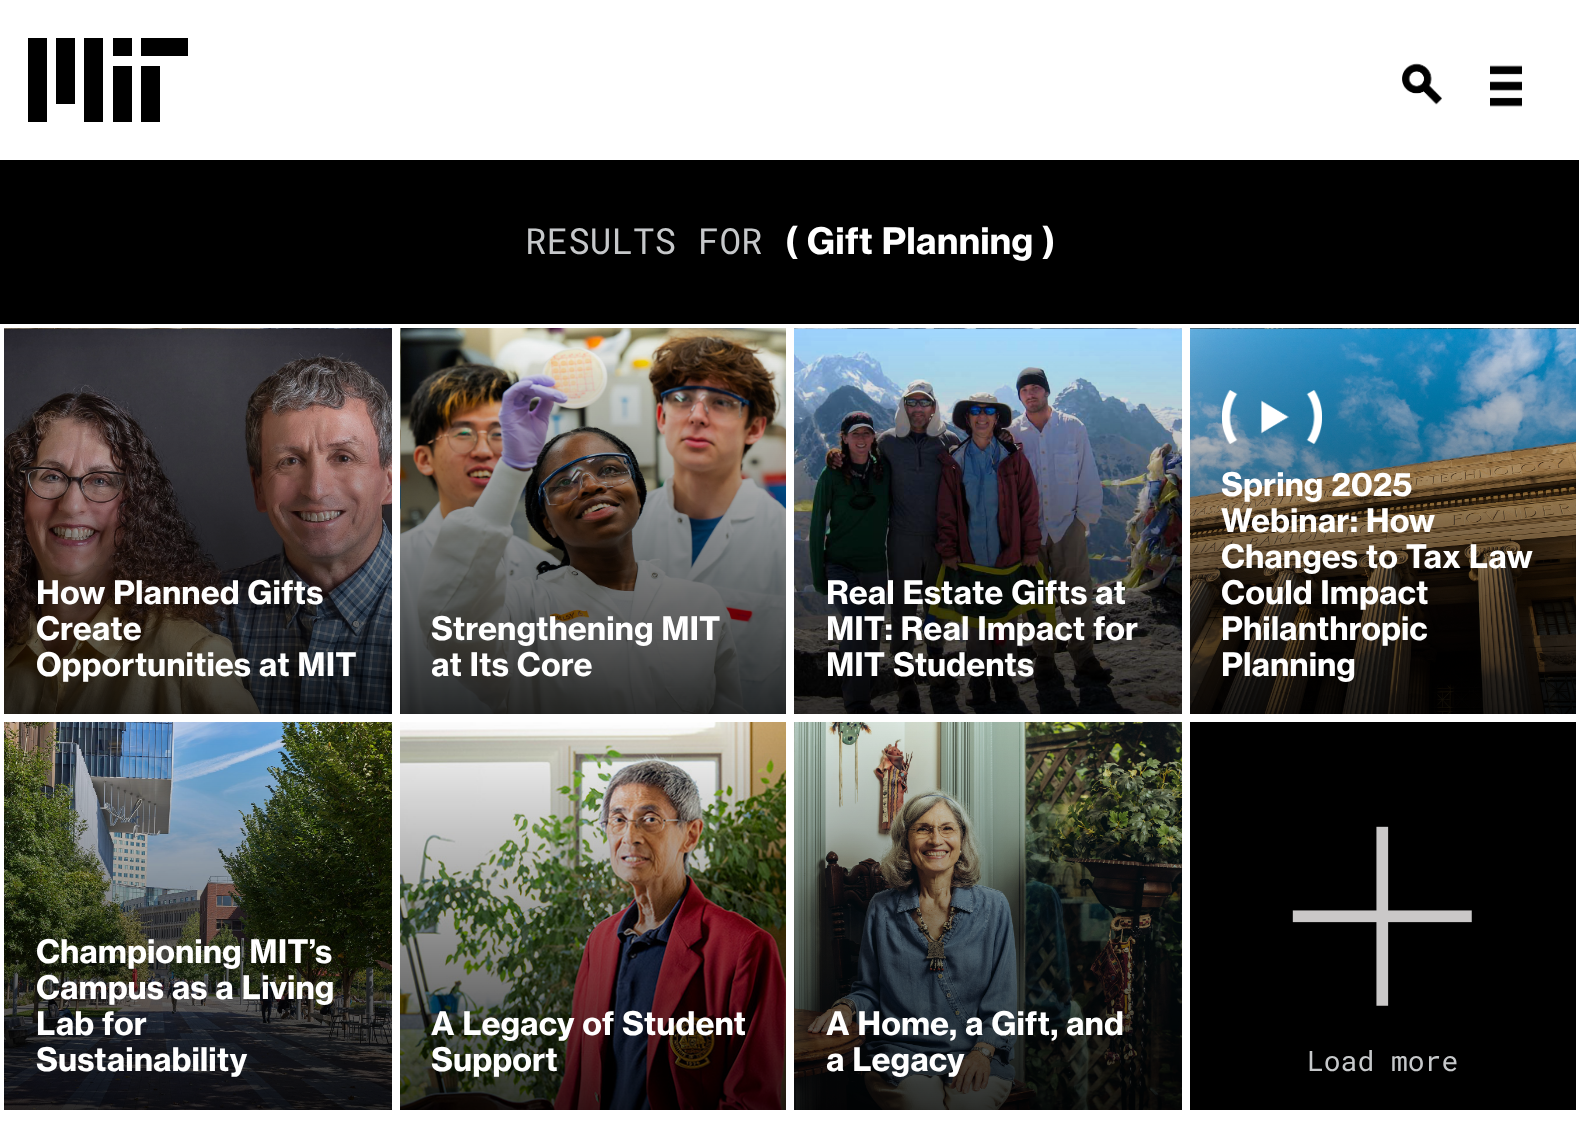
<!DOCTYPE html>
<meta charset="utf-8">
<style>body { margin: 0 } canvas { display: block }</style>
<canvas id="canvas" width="1579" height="1140"></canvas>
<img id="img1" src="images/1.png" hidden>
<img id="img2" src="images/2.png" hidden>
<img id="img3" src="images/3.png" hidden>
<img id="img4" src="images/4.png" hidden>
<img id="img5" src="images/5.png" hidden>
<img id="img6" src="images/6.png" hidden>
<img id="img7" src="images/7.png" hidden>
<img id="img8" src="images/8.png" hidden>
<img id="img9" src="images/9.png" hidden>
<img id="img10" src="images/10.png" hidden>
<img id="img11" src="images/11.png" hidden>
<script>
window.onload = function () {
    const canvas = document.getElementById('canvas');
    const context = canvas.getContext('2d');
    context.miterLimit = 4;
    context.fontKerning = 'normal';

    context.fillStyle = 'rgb(255, 255, 255)';
    context.fillRect(0, 0, 1579, 1140);
    context.fillStyle = 'rgb(0, 0, 0)';
    context.beginPath();
    context.moveTo(113, 122);
    context.lineTo(132, 122);
    context.lineTo(132, 66);
    context.lineTo(113, 66);
    context.closePath();
    context.moveTo(141, 56);
    context.lineTo(188, 56);
    context.lineTo(188, 38);
    context.lineTo(141, 38);
    context.closePath();
    context.moveTo(113, 38);
    context.lineTo(132, 38);
    context.lineTo(132, 56);
    context.lineTo(113, 56);
    context.closePath();
    context.moveTo(84, 122);
    context.lineTo(103, 122);
    context.lineTo(103, 38);
    context.lineTo(84, 38);
    context.closePath();
    context.moveTo(56, 104);
    context.lineTo(75, 104);
    context.lineTo(75, 38);
    context.lineTo(56, 38);
    context.closePath();
    context.moveTo(28, 122);
    context.lineTo(47, 122);
    context.lineTo(47, 38);
    context.lineTo(28, 38);
    context.closePath();
    context.moveTo(141, 122);
    context.lineTo(160, 122);
    context.lineTo(160, 66);
    context.lineTo(141, 66);
    context.closePath();
    context.fill();
    context.drawImage(document.getElementById('img1'), 1402, 63, 40, 42);
    context.drawImage(document.getElementById('img2'), 1490, 65, 32, 42);
    context.fillRect(0, 160, 1579, 164);
    context.drawImage(document.getElementById('img3'), 4, 328, 388, 386);
    context.drawImage(document.getElementById('img4'), 400, 328, 386, 386);
    context.drawImage(document.getElementById('img5'), 794, 328, 388, 386);
    context.drawImage(document.getElementById('img6'), 1190, 328, 386, 386);
    context.drawImage(document.getElementById('img7'), 1222, 390, 100, 54);
    context.drawImage(document.getElementById('img8'), 4, 722, 388, 388);
    context.drawImage(document.getElementById('img9'), 400, 722, 386, 388);
    context.drawImage(document.getElementById('img10'), 794, 722, 388, 388);
    context.fillRect(1190, 722, 386, 388);
    context.drawImage(document.getElementById('img11'), 1292, 826, 180, 180);
    context.font = '36px Roboto Mono';
    context.fillStyle = 'rgb(198, 200, 202)';
    context.fillText('RESULTS FOR', 525, 254);
    context.font = 'bold 36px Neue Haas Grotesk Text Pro';
    context.fillStyle = 'rgb(255, 255, 255)';
    context.fillText('( Gift Planning )', 785, 254);
    context.font = 'bold 32px Neue Haas Grotesk Text Pro';
    context.fillText('How Planned Gifts', 36, 604);
    context.fillText('Create', 36, 640);
    context.fillText('Opportunities at MIT', 36, 676);
    context.fillText('Strengthening MIT', 431, 640);
    context.fillText('at Its Core', 431, 676);
    context.fillText('Real Estate Gifts at', 826, 604);
    context.fillText('MIT: Real Impact for', 826, 640);
    context.fillText('MIT Students', 826, 676);
    context.fillText('Spring 2025', 1221, 496);
    context.fillText('Webinar: How', 1221, 532);
    context.fillText('Changes to Tax Law', 1221, 568);
    context.fillText('Could Impact', 1221, 604);
    context.fillText('Philanthropic', 1221, 640);
    context.fillText('Planning', 1221, 676);
    context.fillText('Championing MIT’s', 36, 963);
    context.fillText('Campus as a Living', 36, 999);
    context.fillText('Lab for', 36, 1035);
    context.fillText('Sustainability', 36, 1071);
    context.fillText('A Legacy of Student', 431, 1035);
    context.fillText('Support', 431, 1071);
    context.fillText('A Home, a Gift, and', 826, 1035);
    context.fillText('a Legacy', 826, 1071);
    context.font = '28px Roboto Mono';
    context.fillStyle = 'rgb(198, 200, 202)';
    context.fillText('Load more', 1307, 1071);
};
</script>
